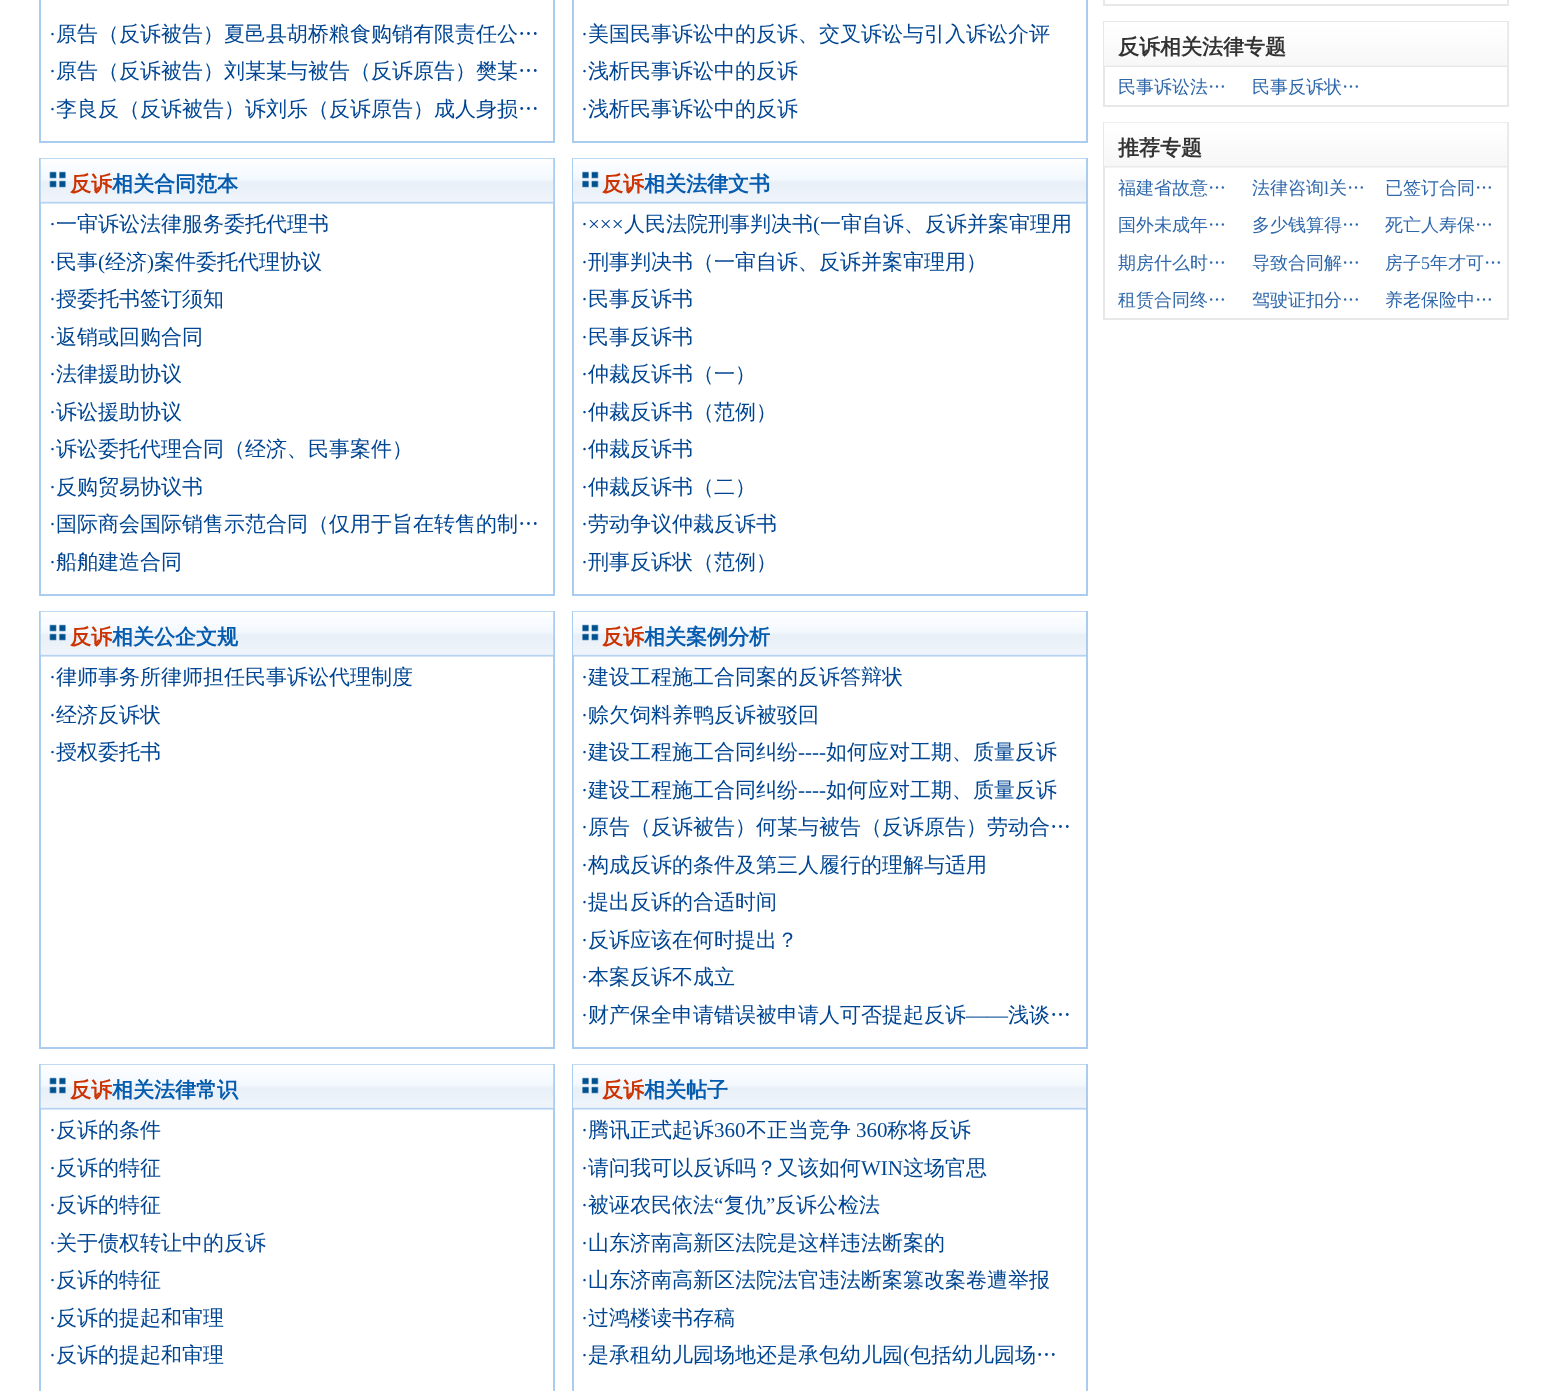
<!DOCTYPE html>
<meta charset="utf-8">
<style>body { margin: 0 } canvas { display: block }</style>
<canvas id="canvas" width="1546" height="1391"></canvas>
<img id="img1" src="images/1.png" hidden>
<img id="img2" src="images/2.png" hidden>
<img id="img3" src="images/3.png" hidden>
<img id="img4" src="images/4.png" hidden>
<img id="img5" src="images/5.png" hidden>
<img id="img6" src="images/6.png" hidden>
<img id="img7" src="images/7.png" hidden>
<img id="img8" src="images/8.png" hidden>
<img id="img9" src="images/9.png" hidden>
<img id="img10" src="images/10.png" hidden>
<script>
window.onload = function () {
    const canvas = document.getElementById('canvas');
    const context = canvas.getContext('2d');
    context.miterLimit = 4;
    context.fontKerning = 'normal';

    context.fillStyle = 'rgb(255, 255, 255)';
    context.fillRect(0, 0, 1546, 1391);
    context.strokeStyle = 'rgb(170, 204, 238)';
    context.lineWidth = 2;
    context.strokeRect(40, -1, 514, 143);
    context.strokeRect(573, -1, 514, 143);
    context.strokeRect(40, 159, 514, 436);
    context.drawImage(document.getElementById('img1'), 40, 158, 514, 46);
    context.drawImage(document.getElementById('img2'), 49, 171, 17, 17);
    context.strokeRect(573, 159, 514, 436);
    context.drawImage(document.getElementById('img3'), 573, 158, 513, 46);
    context.drawImage(document.getElementById('img4'), 582, 171, 17, 17);
    context.strokeRect(40, 612, 514, 436);
    context.drawImage(document.getElementById('img5'), 40, 611, 514, 46);
    context.drawImage(document.getElementById('img2'), 49, 624, 17, 17);
    context.strokeRect(573, 612, 514, 436);
    context.drawImage(document.getElementById('img6'), 573, 611, 513, 46);
    context.drawImage(document.getElementById('img4'), 582, 624, 17, 17);
    context.strokeRect(40, 1065, 514, 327);
    context.drawImage(document.getElementById('img7'), 40, 1064, 514, 46);
    context.drawImage(document.getElementById('img2'), 49, 1077, 17, 17);
    context.strokeRect(573, 1065, 514, 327);
    context.drawImage(document.getElementById('img8'), 573, 1064, 513, 46);
    context.drawImage(document.getElementById('img4'), 582, 1077, 17, 17);
    context.strokeStyle = 'rgb(232, 232, 232)';
    context.strokeRect(1104, -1, 404, 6);
    context.strokeRect(1104, 22, 404, 84);
    context.drawImage(document.getElementById('img9'), 1104, 22, 404, 45);
    context.strokeRect(1104, 123, 404, 196);
    context.drawImage(document.getElementById('img10'), 1104, 122, 404, 46);
    context.font = '21px Liberation Serif';
    context.fillStyle = 'rgb(0, 69, 146)';
    context.fillText('·', 49, 41);
    context.font = '500 21px WenQuanYi Zen Hei';
    context.fillText('原告（反诉被告）夏邑县胡桥粮食购销有限责任公…', 56, 41);
    context.font = '21px Liberation Serif';
    context.fillText('·', 49, 78);
    context.font = '500 21px WenQuanYi Zen Hei';
    context.fillText('原告（反诉被告）刘某某与被告（反诉原告）樊某…', 56, 78);
    context.font = '21px Liberation Serif';
    context.fillText('·', 49, 116);
    context.font = '500 21px WenQuanYi Zen Hei';
    context.fillText('李良反（反诉被告）诉刘乐（反诉原告）成人身损…', 56, 116);
    context.font = '21px Liberation Serif';
    context.fillText('·', 581, 41);
    context.font = '500 21px WenQuanYi Zen Hei';
    context.fillText('美国民事诉讼中的反诉、交叉诉讼与引入诉讼介评', 588, 41);
    context.font = '21px Liberation Serif';
    context.fillText('·', 581, 78);
    context.font = '500 21px WenQuanYi Zen Hei';
    context.fillText('浅析民事诉讼中的反诉', 588, 78);
    context.font = '21px Liberation Serif';
    context.fillText('·', 581, 116);
    context.font = '500 21px WenQuanYi Zen Hei';
    context.fillText('浅析民事诉讼中的反诉', 588, 116);
    context.font = 'bold 21px WenQuanYi Zen Hei';
    context.fillStyle = 'rgb(204, 51, 0)';
    context.fillText('反诉', 70, 191);
    context.fillStyle = 'rgb(5, 91, 174)';
    context.fillText('相关合同范本', 112, 191);
    context.font = '21px Liberation Serif';
    context.fillStyle = 'rgb(0, 69, 146)';
    context.fillText('·', 49, 231);
    context.font = '500 21px WenQuanYi Zen Hei';
    context.fillText('一审诉讼法律服务委托代理书', 56, 231);
    context.font = '21px Liberation Serif';
    context.fillText('·', 49, 269);
    context.font = '500 21px WenQuanYi Zen Hei';
    context.fillText('民事', 56, 269);
    context.font = '21px Liberation Serif';
    context.fillText('(', 98, 269);
    context.font = '500 21px WenQuanYi Zen Hei';
    context.fillText('经济', 105, 269);
    context.font = '21px Liberation Serif';
    context.fillText(')', 147, 269);
    context.font = '500 21px WenQuanYi Zen Hei';
    context.fillText('案件委托代理协议', 154, 269);
    context.font = '21px Liberation Serif';
    context.fillText('·', 49, 306);
    context.font = '500 21px WenQuanYi Zen Hei';
    context.fillText('授委托书签订须知', 56, 306);
    context.font = '21px Liberation Serif';
    context.fillText('·', 49, 344);
    context.font = '500 21px WenQuanYi Zen Hei';
    context.fillText('返销或回购合同', 56, 344);
    context.font = '21px Liberation Serif';
    context.fillText('·', 49, 381);
    context.font = '500 21px WenQuanYi Zen Hei';
    context.fillText('法律援助协议', 56, 381);
    context.font = '21px Liberation Serif';
    context.fillText('·', 49, 419);
    context.font = '500 21px WenQuanYi Zen Hei';
    context.fillText('诉讼援助协议', 56, 419);
    context.font = '21px Liberation Serif';
    context.fillText('·', 49, 456);
    context.font = '500 21px WenQuanYi Zen Hei';
    context.fillText('诉讼委托代理合同（经济、民事案件）', 56, 456);
    context.font = '21px Liberation Serif';
    context.fillText('·', 49, 494);
    context.font = '500 21px WenQuanYi Zen Hei';
    context.fillText('反购贸易协议书', 56, 494);
    context.font = '21px Liberation Serif';
    context.fillText('·', 49, 531);
    context.font = '500 21px WenQuanYi Zen Hei';
    context.fillText('国际商会国际销售示范合同（仅用于旨在转售的制…', 56, 531);
    context.font = '21px Liberation Serif';
    context.fillText('·', 49, 569);
    context.font = '500 21px WenQuanYi Zen Hei';
    context.fillText('船舶建造合同', 56, 569);
    context.font = 'bold 21px WenQuanYi Zen Hei';
    context.fillStyle = 'rgb(204, 51, 0)';
    context.fillText('反诉', 602, 191);
    context.fillStyle = 'rgb(5, 91, 174)';
    context.fillText('相关法律文书', 644, 191);
    context.font = '21px Liberation Serif';
    context.fillStyle = 'rgb(0, 69, 146)';
    context.fillText('·×××', 581, 231);
    context.font = '500 21px WenQuanYi Zen Hei';
    context.fillText('人民法院刑事判决书', 624, 231);
    context.font = '21px Liberation Serif';
    context.fillText('(', 813, 231);
    context.font = '500 21px WenQuanYi Zen Hei';
    context.fillText('一审自诉、反诉并案审理用', 820, 231);
    context.font = '21px Liberation Serif';
    context.fillText('·', 581, 269);
    context.font = '500 21px WenQuanYi Zen Hei';
    context.fillText('刑事判决书（一审自诉、反诉并案审理用）', 588, 269);
    context.font = '21px Liberation Serif';
    context.fillText('·', 581, 306);
    context.font = '500 21px WenQuanYi Zen Hei';
    context.fillText('民事反诉书', 588, 306);
    context.font = '21px Liberation Serif';
    context.fillText('·', 581, 344);
    context.font = '500 21px WenQuanYi Zen Hei';
    context.fillText('民事反诉书', 588, 344);
    context.font = '21px Liberation Serif';
    context.fillText('·', 581, 381);
    context.font = '500 21px WenQuanYi Zen Hei';
    context.fillText('仲裁反诉书（一）', 588, 381);
    context.font = '21px Liberation Serif';
    context.fillText('·', 581, 419);
    context.font = '500 21px WenQuanYi Zen Hei';
    context.fillText('仲裁反诉书（范例）', 588, 419);
    context.font = '21px Liberation Serif';
    context.fillText('·', 581, 456);
    context.font = '500 21px WenQuanYi Zen Hei';
    context.fillText('仲裁反诉书', 588, 456);
    context.font = '21px Liberation Serif';
    context.fillText('·', 581, 494);
    context.font = '500 21px WenQuanYi Zen Hei';
    context.fillText('仲裁反诉书（二）', 588, 494);
    context.font = '21px Liberation Serif';
    context.fillText('·', 581, 531);
    context.font = '500 21px WenQuanYi Zen Hei';
    context.fillText('劳动争议仲裁反诉书', 588, 531);
    context.font = '21px Liberation Serif';
    context.fillText('·', 581, 569);
    context.font = '500 21px WenQuanYi Zen Hei';
    context.fillText('刑事反诉状（范例）', 588, 569);
    context.font = 'bold 21px WenQuanYi Zen Hei';
    context.fillStyle = 'rgb(204, 51, 0)';
    context.fillText('反诉', 70, 644);
    context.fillStyle = 'rgb(5, 91, 174)';
    context.fillText('相关公企文规', 112, 644);
    context.font = '21px Liberation Serif';
    context.fillStyle = 'rgb(0, 69, 146)';
    context.fillText('·', 49, 684);
    context.font = '500 21px WenQuanYi Zen Hei';
    context.fillText('律师事务所律师担任民事诉讼代理制度', 56, 684);
    context.font = '21px Liberation Serif';
    context.fillText('·', 49, 722);
    context.font = '500 21px WenQuanYi Zen Hei';
    context.fillText('经济反诉状', 56, 722);
    context.font = '21px Liberation Serif';
    context.fillText('·', 49, 759);
    context.font = '500 21px WenQuanYi Zen Hei';
    context.fillText('授权委托书', 56, 759);
    context.font = 'bold 21px WenQuanYi Zen Hei';
    context.fillStyle = 'rgb(204, 51, 0)';
    context.fillText('反诉', 602, 644);
    context.fillStyle = 'rgb(5, 91, 174)';
    context.fillText('相关案例分析', 644, 644);
    context.font = '21px Liberation Serif';
    context.fillStyle = 'rgb(0, 69, 146)';
    context.fillText('·', 581, 684);
    context.font = '500 21px WenQuanYi Zen Hei';
    context.fillText('建设工程施工合同案的反诉答辩状', 588, 684);
    context.font = '21px Liberation Serif';
    context.fillText('·', 581, 722);
    context.font = '500 21px WenQuanYi Zen Hei';
    context.fillText('赊欠饲料养鸭反诉被驳回', 588, 722);
    context.font = '21px Liberation Serif';
    context.fillText('·', 581, 759);
    context.font = '500 21px WenQuanYi Zen Hei';
    context.fillText('建设工程施工合同纠纷', 588, 759);
    context.font = '21px Liberation Serif';
    context.fillText('----', 798, 759);
    context.font = '500 21px WenQuanYi Zen Hei';
    context.fillText('如何应对工期、质量反诉', 826, 759);
    context.font = '21px Liberation Serif';
    context.fillText('·', 581, 797);
    context.font = '500 21px WenQuanYi Zen Hei';
    context.fillText('建设工程施工合同纠纷', 588, 797);
    context.font = '21px Liberation Serif';
    context.fillText('----', 798, 797);
    context.font = '500 21px WenQuanYi Zen Hei';
    context.fillText('如何应对工期、质量反诉', 826, 797);
    context.font = '21px Liberation Serif';
    context.fillText('·', 581, 834);
    context.font = '500 21px WenQuanYi Zen Hei';
    context.fillText('原告（反诉被告）何某与被告（反诉原告）劳动合…', 588, 834);
    context.font = '21px Liberation Serif';
    context.fillText('·', 581, 872);
    context.font = '500 21px WenQuanYi Zen Hei';
    context.fillText('构成反诉的条件及第三人履行的理解与适用', 588, 872);
    context.font = '21px Liberation Serif';
    context.fillText('·', 581, 909);
    context.font = '500 21px WenQuanYi Zen Hei';
    context.fillText('提出反诉的合适时间', 588, 909);
    context.font = '21px Liberation Serif';
    context.fillText('·', 581, 947);
    context.font = '500 21px WenQuanYi Zen Hei';
    context.fillText('反诉应该在何时提出？', 588, 947);
    context.font = '21px Liberation Serif';
    context.fillText('·', 581, 984);
    context.font = '500 21px WenQuanYi Zen Hei';
    context.fillText('本案反诉不成立', 588, 984);
    context.font = '21px Liberation Serif';
    context.fillText('·', 581, 1022);
    context.font = '500 21px WenQuanYi Zen Hei';
    context.fillText('财产保全申请错误被申请人可否提起反诉', 588, 1022);
    context.font = '21px Liberation Serif';
    context.fillText('——', 966, 1022);
    context.font = '500 21px WenQuanYi Zen Hei';
    context.fillText('浅谈…', 1008, 1022);
    context.font = 'bold 21px WenQuanYi Zen Hei';
    context.fillStyle = 'rgb(204, 51, 0)';
    context.fillText('反诉', 70, 1097);
    context.fillStyle = 'rgb(5, 91, 174)';
    context.fillText('相关法律常识', 112, 1097);
    context.font = '21px Liberation Serif';
    context.fillStyle = 'rgb(0, 69, 146)';
    context.fillText('·', 49, 1137);
    context.font = '500 21px WenQuanYi Zen Hei';
    context.fillText('反诉的条件', 56, 1137);
    context.font = '21px Liberation Serif';
    context.fillText('·', 49, 1175);
    context.font = '500 21px WenQuanYi Zen Hei';
    context.fillText('反诉的特征', 56, 1175);
    context.font = '21px Liberation Serif';
    context.fillText('·', 49, 1212);
    context.font = '500 21px WenQuanYi Zen Hei';
    context.fillText('反诉的特征', 56, 1212);
    context.font = '21px Liberation Serif';
    context.fillText('·', 49, 1250);
    context.font = '500 21px WenQuanYi Zen Hei';
    context.fillText('关于债权转让中的反诉', 56, 1250);
    context.font = '21px Liberation Serif';
    context.fillText('·', 49, 1287);
    context.font = '500 21px WenQuanYi Zen Hei';
    context.fillText('反诉的特征', 56, 1287);
    context.font = '21px Liberation Serif';
    context.fillText('·', 49, 1325);
    context.font = '500 21px WenQuanYi Zen Hei';
    context.fillText('反诉的提起和审理', 56, 1325);
    context.font = '21px Liberation Serif';
    context.fillText('·', 49, 1362);
    context.font = '500 21px WenQuanYi Zen Hei';
    context.fillText('反诉的提起和审理', 56, 1362);
    context.font = 'bold 21px WenQuanYi Zen Hei';
    context.fillStyle = 'rgb(204, 51, 0)';
    context.fillText('反诉', 602, 1097);
    context.fillStyle = 'rgb(5, 91, 174)';
    context.fillText('相关帖子', 644, 1097);
    context.font = '21px Liberation Serif';
    context.fillStyle = 'rgb(0, 69, 146)';
    context.fillText('·', 581, 1137);
    context.font = '500 21px WenQuanYi Zen Hei';
    context.fillText('腾讯正式起诉', 588, 1137);
    context.font = '21px Liberation Serif';
    context.fillText('360', 714, 1137);
    context.font = '500 21px WenQuanYi Zen Hei';
    context.fillText('不正当竞争', 746, 1137);
    context.font = '21px Liberation Serif';
    context.fillText('360', 856, 1137);
    context.font = '500 21px WenQuanYi Zen Hei';
    context.fillText('称将反诉', 887, 1137);
    context.font = '21px Liberation Serif';
    context.fillText('·', 581, 1175);
    context.font = '500 21px WenQuanYi Zen Hei';
    context.fillText('请问我可以反诉吗？又该如何', 588, 1175);
    context.font = '21px Liberation Serif';
    context.fillText('WIN', 861, 1175);
    context.font = '500 21px WenQuanYi Zen Hei';
    context.fillText('这场官思', 903, 1175);
    context.fillText('被诬农民依法', 588, 1212);
    context.font = '21px Liberation Serif';
    context.fillText('“', 714, 1212);
    context.font = '500 21px WenQuanYi Zen Hei';
    context.fillText('复仇', 724, 1212);
    context.font = '21px Liberation Serif';
    context.fillText('”', 766, 1212);
    context.font = '500 21px WenQuanYi Zen Hei';
    context.fillText('反诉公检法', 775, 1212);
    context.font = '21px Liberation Serif';
    context.fillText('·', 581, 1212);
    context.fillText('·', 581, 1250);
    context.font = '500 21px WenQuanYi Zen Hei';
    context.fillText('山东济南高新区法院是这样违法断案的', 588, 1250);
    context.font = '21px Liberation Serif';
    context.fillText('·', 581, 1287);
    context.font = '500 21px WenQuanYi Zen Hei';
    context.fillText('山东济南高新区法院法官违法断案篡改案卷遭举报', 588, 1287);
    context.font = '21px Liberation Serif';
    context.fillText('·', 581, 1325);
    context.font = '500 21px WenQuanYi Zen Hei';
    context.fillText('过鸿楼读书存稿', 588, 1325);
    context.font = '21px Liberation Serif';
    context.fillText('·', 581, 1362);
    context.font = '500 21px WenQuanYi Zen Hei';
    context.fillText('是承租幼儿园场地还是承包幼儿园', 588, 1362);
    context.font = '21px Liberation Serif';
    context.fillText('(', 903, 1362);
    context.font = '500 21px WenQuanYi Zen Hei';
    context.fillText('包括幼儿园场…', 910, 1362);
    context.font = 'bold 21px WenQuanYi Zen Hei';
    context.fillStyle = 'rgb(51, 51, 51)';
    context.fillText('反诉相关法律专题', 1118, 54);
    context.font = '500 18px WenQuanYi Zen Hei';
    context.fillStyle = 'rgb(46, 103, 170)';
    context.fillText('民事诉讼法…', 1118, 93);
    context.fillText('民事反诉状…', 1252, 93);
    context.font = 'bold 21px WenQuanYi Zen Hei';
    context.fillStyle = 'rgb(51, 51, 51)';
    context.fillText('推荐专题', 1118, 155);
    context.font = '500 18px WenQuanYi Zen Hei';
    context.fillStyle = 'rgb(46, 103, 170)';
    context.fillText('福建省故意…', 1118, 194);
    context.fillText('法律咨询', 1252, 194);
    context.font = '18px Liberation Serif';
    context.fillText('l', 1324, 194);
    context.font = '500 18px WenQuanYi Zen Hei';
    context.fillText('关…', 1329, 194);
    context.fillText('已签订合同…', 1385, 194);
    context.fillText('国外未成年…', 1118, 231);
    context.fillText('多少钱算得…', 1252, 231);
    context.fillText('死亡人寿保…', 1385, 231);
    context.fillText('期房什么时…', 1118, 269);
    context.fillText('导致合同解…', 1252, 269);
    context.fillText('房子', 1385, 269);
    context.font = '18px Liberation Serif';
    context.fillText('5', 1421, 269);
    context.font = '500 18px WenQuanYi Zen Hei';
    context.fillText('年才可…', 1430, 269);
    context.fillText('租赁合同终…', 1118, 306);
    context.fillText('驾驶证扣分…', 1252, 306);
    context.fillText('养老保险中…', 1385, 306);
};
</script>
